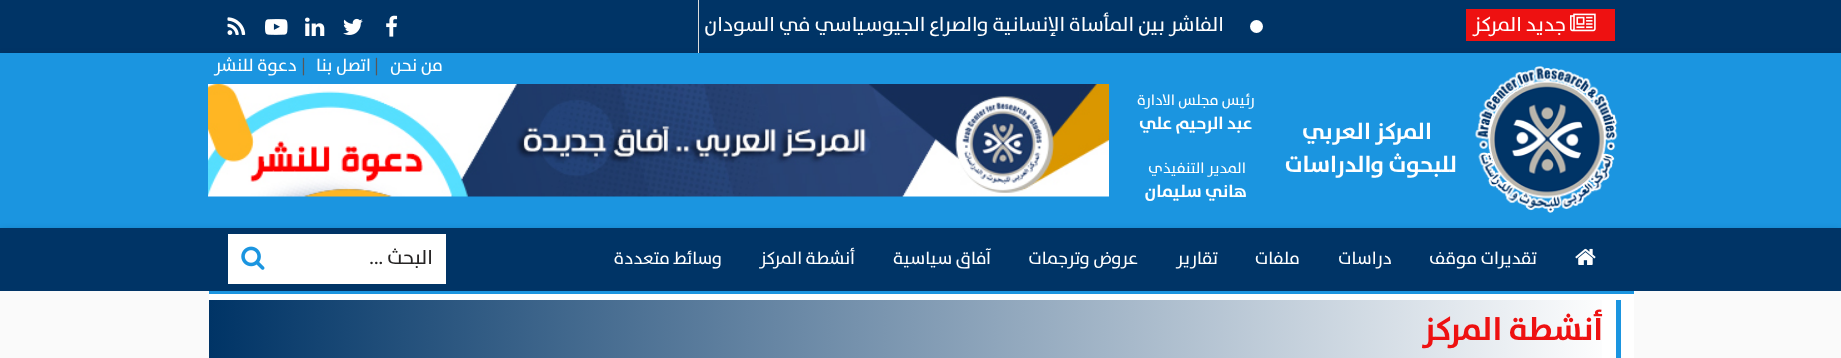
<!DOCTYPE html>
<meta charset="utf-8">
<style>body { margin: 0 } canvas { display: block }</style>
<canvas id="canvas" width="1841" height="358"></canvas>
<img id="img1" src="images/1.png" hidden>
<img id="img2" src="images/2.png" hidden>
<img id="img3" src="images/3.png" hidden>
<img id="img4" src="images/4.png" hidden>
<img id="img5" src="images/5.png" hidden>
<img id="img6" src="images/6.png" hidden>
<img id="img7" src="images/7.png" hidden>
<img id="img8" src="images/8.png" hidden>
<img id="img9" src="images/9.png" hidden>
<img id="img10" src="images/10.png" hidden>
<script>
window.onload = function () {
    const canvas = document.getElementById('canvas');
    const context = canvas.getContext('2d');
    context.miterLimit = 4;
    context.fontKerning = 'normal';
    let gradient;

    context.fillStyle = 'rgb(0, 52, 102)';
    context.fillRect(0, 0, 1841, 358);
    context.fillStyle = 'rgba(0, 0, 0, 0.19)';
    context.filter = 'blur(3px)';
    context.beginPath();
    context.rect(0, 55, 1841, 175);
    context.fill();
    context.filter = 'none';
    context.fillStyle = 'rgb(220, 220, 220)';
    context.fillRect(698, 0, 1, 53);
    context.fillStyle = 'rgb(238, 17, 17)';
    context.fillRect(1466, 9, 149, 32);
    context.drawImage(document.getElementById('img1'), 1570, 13, 26, 19);
    context.fillStyle = 'rgb(255, 255, 255)';
    context.beginPath();
    context.arc(1256.5, 26.5, 6.5, 0, 2 * Math.PI);
    context.fill();
    context.drawImage(document.getElementById('img2'), 386, 15, 12, 22);
    context.drawImage(document.getElementById('img3'), 343, 18, 20, 17);
    context.drawImage(document.getElementById('img4'), 305, 17, 20, 19);
    context.drawImage(document.getElementById('img5'), 265, 19, 23, 16);
    context.drawImage(document.getElementById('img6'), 227, 17, 19, 18);
    context.fillStyle = 'rgb(27, 149, 224)';
    context.fillRect(0, 53, 1841, 175);
    context.drawImage(document.getElementById('img7'), 1475, 66, 143, 147);
    context.drawImage(document.getElementById('img8'), 208, 84, 901, 113);
    context.fillStyle = 'rgba(0, 0, 0, 0.19)';
    context.filter = 'blur(3px)';
    context.beginPath();
    context.rect(0, 230, 1841, 64);
    context.fill();
    context.filter = 'none';
    context.fillStyle = 'rgb(0, 52, 102)';
    context.fillRect(0, 228, 1841, 63);
    context.drawImage(document.getElementById('img9'), 1575, 248, 21, 17);
    context.fillStyle = 'rgb(255, 255, 255)';
    context.fillRect(228, 234, 218, 50);
    context.drawImage(document.getElementById('img10'), 241, 246, 24, 24);
    context.fillStyle = 'rgb(250, 250, 250)';
    context.fillRect(0, 291, 1841, 67);
    context.fillStyle = 'rgb(255, 255, 255)';
    context.fillRect(209, 294, 1425, 64);
    context.fillStyle = 'rgb(27, 149, 224)';
    context.fillRect(209, 291, 1425, 3);
    gradient = context.createLinearGradient(209, 331, 1616, 331);
    gradient.addColorStop(0, 'rgb(0, 52, 102)');
    gradient.addColorStop(1, 'rgb(255, 255, 255)');
    context.fillStyle = gradient;
    context.fillRect(209, 300, 1393, 58);
    context.fillStyle = 'rgb(27, 149, 224)';
    context.fillRect(1616, 300, 5, 58);
    context.direction = 'rtl';
    context.font = '500 20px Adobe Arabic';
    context.fillStyle = 'rgb(255, 255, 255)';
    context.fillText('جديد المركز', 1566, 31);
    context.fillText('الفاشر بين المأساة الإنسانية والصراع الجيوسياسي في السودان', 1224, 31);
    context.font = '500 17.5px Adobe Arabic';
    context.fillText('من نحن', 443, 71);
    context.direction = 'ltr';
    context.fillStyle = 'rgb(90, 86, 86)';
    context.fillText('|', 374, 71);
    context.direction = 'rtl';
    context.fillStyle = 'rgb(255, 255, 255)';
    context.fillText('اتصل بنا', 371, 71);
    context.direction = 'ltr';
    context.fillStyle = 'rgb(90, 86, 86)';
    context.fillText('|', 301, 71);
    context.direction = 'rtl';
    context.fillStyle = 'rgb(255, 255, 255)';
    context.fillText('دعوة للنشر', 297, 71);
    context.font = 'bold 23px Adobe Arabic';
    context.fillText('المركز العربي', 1432, 139);
    context.fillText('للبحوث والدراسات', 1457, 172);
    context.font = '500 15px Adobe Arabic';
    context.fillText('رئيس مجلس الادارة', 1255, 105);
    context.font = 'bold 17.5px Adobe Arabic';
    context.fillText('عبد الرحيم علي', 1252, 129);
    context.font = '500 15px Adobe Arabic';
    context.fillText('المدير التنفيذي', 1246, 173);
    context.font = 'bold 17.5px Adobe Arabic';
    context.fillText('هاني سليمان', 1247, 197);
    context.font = '500 17.5px Adobe Arabic';
    context.fillText('تقديرات موقف', 1537, 264);
    context.fillText('دراسات', 1392, 264);
    context.fillText('ملفات', 1300, 264);
    context.fillText('تقارير', 1218, 264);
    context.fillText('عروض وترجمات', 1138, 264);
    context.fillText('آفاق سياسية', 991, 264);
    context.fillText('أنشطة المركز', 855, 264);
    context.fillText('وسائط متعددة', 722, 264);
    context.font = '500 20px Adobe Arabic';
    context.fillStyle = 'rgb(38, 36, 36)';
    context.fillText('البحث ...', 433, 264);
    context.font = 'bold 32.5px Adobe Arabic';
    context.fillStyle = 'rgb(238, 17, 17)';
    context.fillText('أنشطة المركز', 1603, 340);
};
</script>
